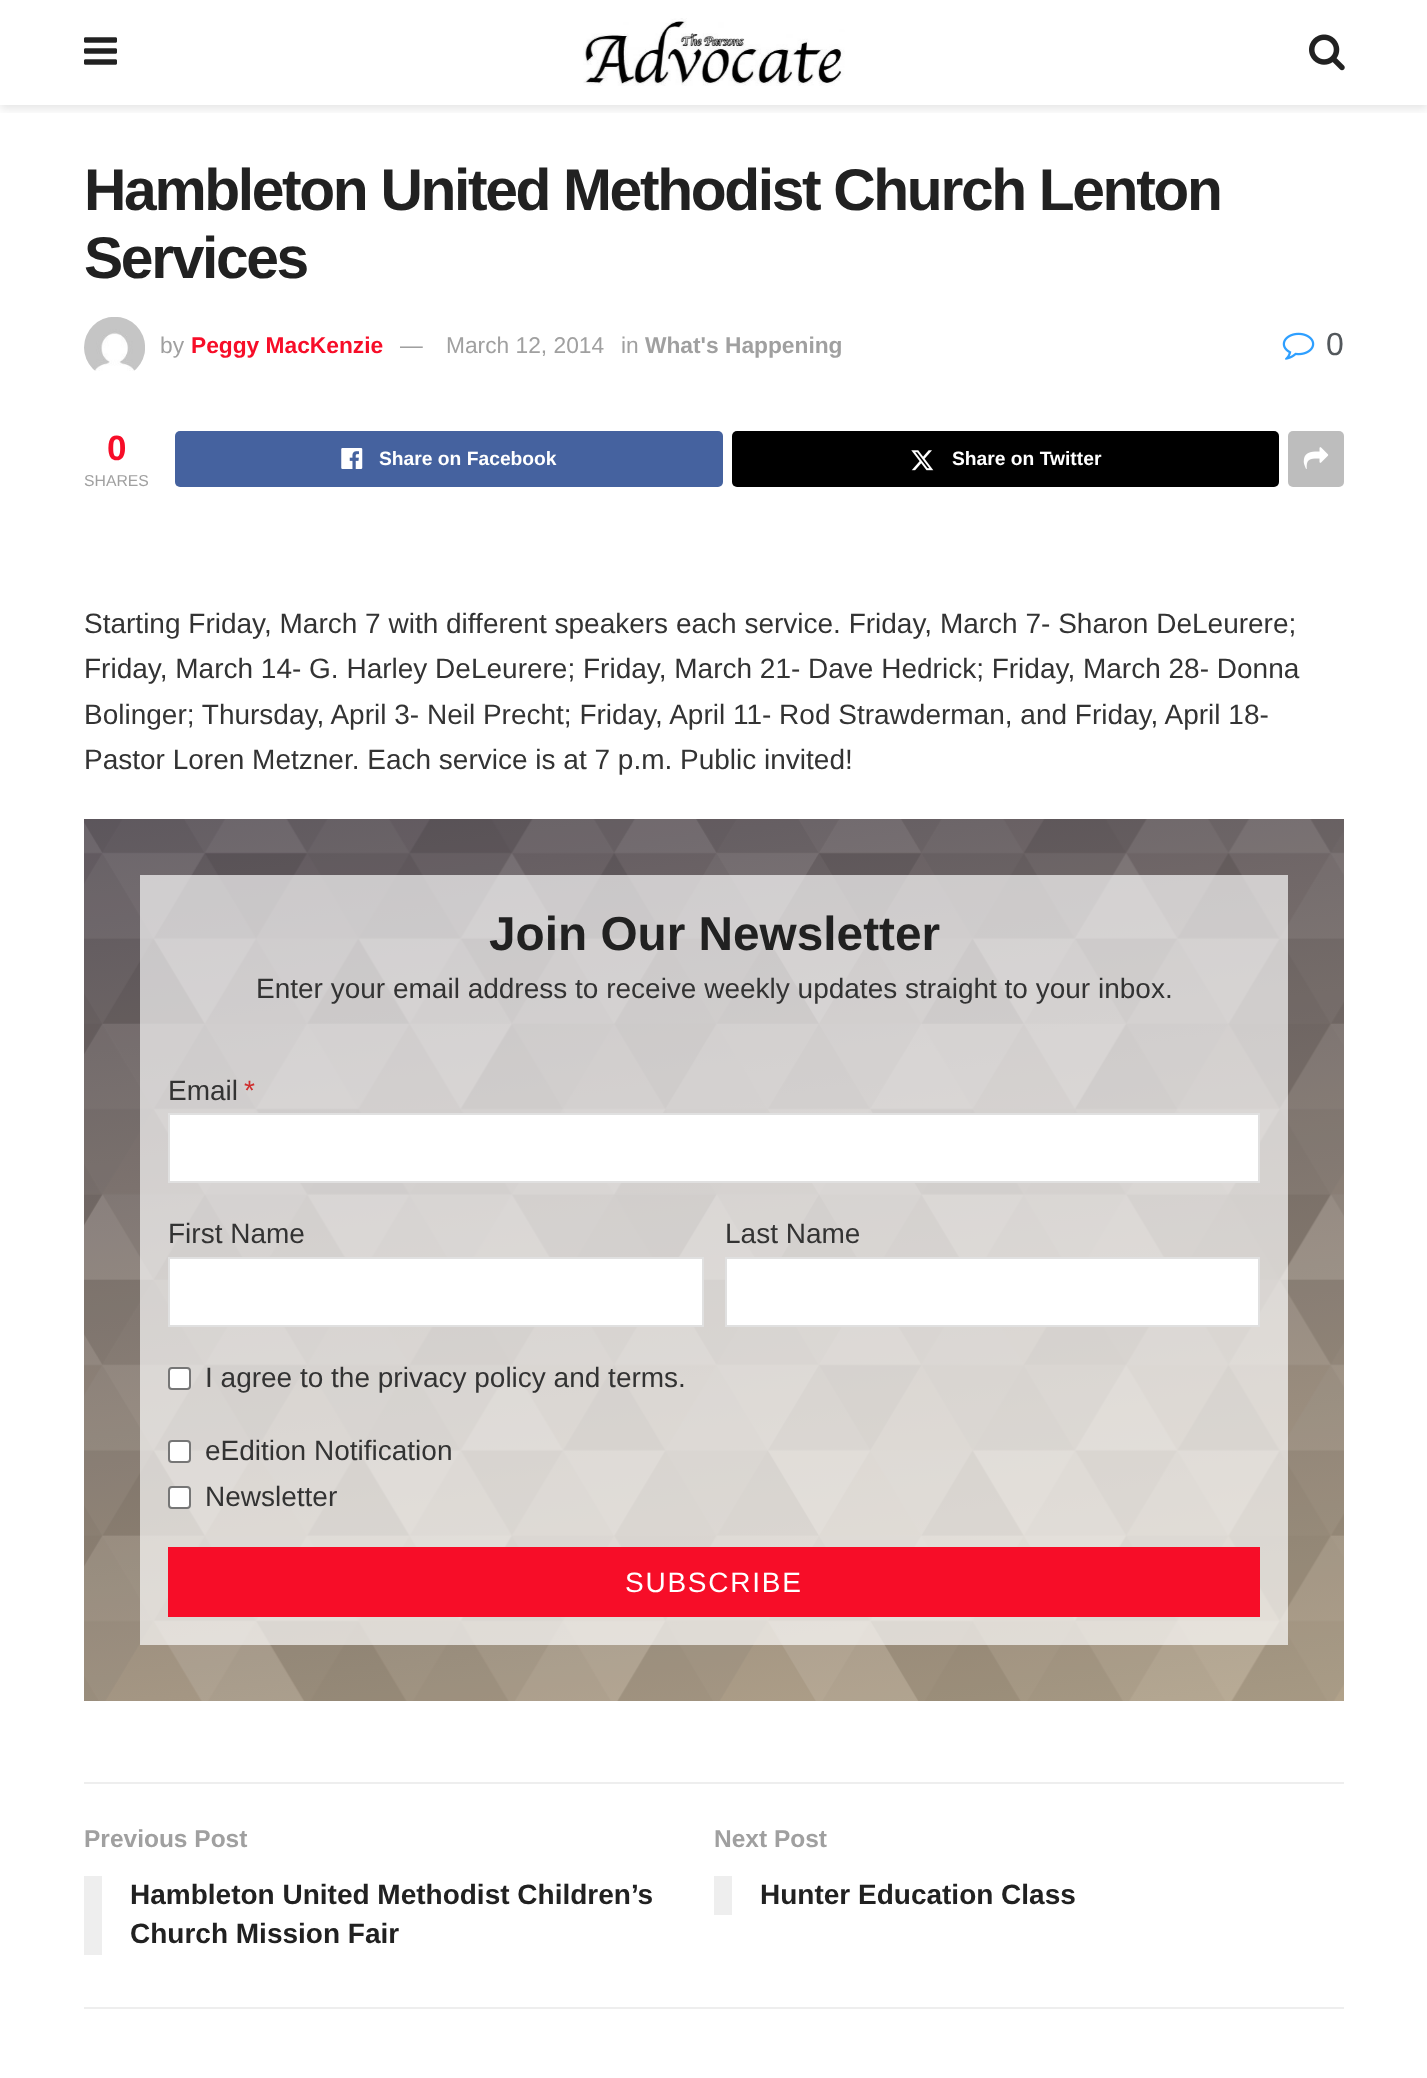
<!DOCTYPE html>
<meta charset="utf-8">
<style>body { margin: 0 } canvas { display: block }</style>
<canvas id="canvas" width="1427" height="2078"></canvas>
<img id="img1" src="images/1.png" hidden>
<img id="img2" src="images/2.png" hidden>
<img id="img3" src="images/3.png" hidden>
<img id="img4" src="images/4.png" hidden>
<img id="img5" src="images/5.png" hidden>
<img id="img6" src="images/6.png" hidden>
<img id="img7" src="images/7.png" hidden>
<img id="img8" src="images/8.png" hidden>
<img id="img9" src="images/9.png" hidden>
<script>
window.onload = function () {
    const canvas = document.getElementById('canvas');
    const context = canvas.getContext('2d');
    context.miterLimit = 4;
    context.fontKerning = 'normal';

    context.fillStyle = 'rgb(255, 255, 255)';
    context.fillRect(0, 0, 1427, 2078);
    context.save();
    context.beginPath();
    context.rect(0, 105, 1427, 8);
    context.clip();
    context.fillStyle = 'rgba(0, 0, 0, 0.1)';
    context.filter = 'blur(5px)';
    context.beginPath();
    context.rect(0, 4, 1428, 105);
    context.fill();
    context.filter = 'none';
    context.restore();
    context.drawImage(document.getElementById('img1'), 84, 37, 33, 28);
    context.drawImage(document.getElementById('img2'), 583, 18, 262, 68);
    context.drawImage(document.getElementById('img3'), 1309, 34, 36, 37);
    context.drawImage(document.getElementById('img4'), 84, 317, 61, 54);
    context.drawImage(document.getElementById('img5'), 1282, 332, 33, 28);
    context.fillStyle = 'rgb(69, 98, 159)';
    context.beginPath();
    context.roundRect(175, 431, 548, 56, 5);
    context.fill();
    context.drawImage(document.getElementById('img6'), 341, 448, 22, 21);
    context.fillStyle = 'rgb(0, 0, 0)';
    context.beginPath();
    context.roundRect(732, 431, 547, 56, 5);
    context.fill();
    context.drawImage(document.getElementById('img7'), 911, 450, 23, 21);
    context.fillStyle = 'rgb(189, 189, 189)';
    context.beginPath();
    context.roundRect(1288, 431, 56, 56, 5);
    context.fill();
    context.drawImage(document.getElementById('img8'), 1303, 447, 26, 22);
    context.drawImage(document.getElementById('img9'), 84, 819, 1260, 882);
    context.fillStyle = 'rgba(255, 255, 255, 0.67)';
    context.fillRect(140, 875, 1148, 770);
    context.fillStyle = 'rgb(255, 255, 255)';
    context.beginPath();
    context.rect(169, 1114, 1090, 68);
    context.fill();
    context.strokeStyle = 'rgb(224, 224, 224)';
    context.lineWidth = 2;
    context.stroke();
    context.beginPath();
    context.rect(169, 1258, 534, 68);
    context.fill();
    context.stroke();
    context.beginPath();
    context.rect(726, 1258, 533, 68);
    context.fill();
    context.stroke();
    context.beginPath();
    context.roundRect(169, 1368, 21, 21, 3);
    context.fill();
    context.strokeStyle = 'rgb(118, 118, 118)';
    context.stroke();
    context.beginPath();
    context.roundRect(169, 1441, 21, 21, 3);
    context.fill();
    context.stroke();
    context.beginPath();
    context.roundRect(169, 1487, 21, 21, 3);
    context.fill();
    context.stroke();
    context.fillStyle = 'rgb(247, 13, 40)';
    context.fillRect(168, 1547, 1092, 70);
    context.fillStyle = 'rgb(238, 238, 238)';
    context.fillRect(84, 1782, 1260, 2);
    context.fillRect(84, 2007, 1260, 2);
    context.fillRect(84, 1876, 18, 79);
    context.fillRect(714, 1876, 18, 39);
    context.letterSpacing = '-2.35px';
    context.font = 'bold 58.75px Liberation Sans';
    context.fillStyle = 'rgb(33, 33, 33)';
    context.fillText('Hambleton United Methodist Church Lenton', 84, 210);
    context.fillText('Services', 84, 278);
    context.letterSpacing = '0px';
    context.font = '22.75px Liberation Sans';
    context.fillStyle = 'rgb(160, 160, 160)';
    context.fillText('by', 160, 353);
    context.font = 'bold 22.75px Liberation Sans';
    context.fillStyle = 'rgb(247, 13, 40)';
    context.fillText('Peggy MacKenzie', 191, 353);
    context.font = '22.75px Liberation Sans';
    context.fillStyle = 'rgb(160, 160, 160)';
    context.fillText('—', 400, 353);
    context.fillText('March 12, 2014', 446, 353);
    context.fillText('in', 621, 353);
    context.font = 'bold 22.75px Liberation Sans';
    context.fillText('What\'s Happening', 645, 353);
    context.font = '32px Liberation Sans';
    context.fillStyle = 'rgb(83, 88, 92)';
    context.fillText('0', 1326, 355);
    context.font = 'bold 35px Liberation Sans';
    context.fillStyle = 'rgb(247, 13, 40)';
    context.fillText('0', 107, 460);
    context.font = '15.75px Liberation Sans';
    context.fillStyle = 'rgb(160, 160, 160)';
    context.fillText('SHARES', 84, 486);
    context.font = 'bold 19.25px Liberation Sans';
    context.fillStyle = 'rgb(255, 255, 255)';
    context.fillText('Share on Facebook', 379, 465);
    context.fillText('Share on Twitter', 952, 465);
    context.font = '28px Liberation Sans';
    context.fillStyle = 'rgb(51, 51, 51)';
    context.fillText('Starting Friday, March 7 with different speakers each service. Friday, March 7- Sharon DeLeurere;', 84, 633);
    context.fillText('Friday, March 14- G. Harley DeLeurere; Friday, March 21- Dave Hedrick; Friday, March 28- Donna', 84, 678);
    context.fillText('Bolinger; Thursday, April 3- Neil Precht; Friday, April 11- Rod Strawderman, and Friday, April 18-', 84, 724);
    context.fillText('Pastor Loren Metzner. Each service is at 7 p.m. Public invited!', 84, 769);
    context.font = 'bold 47.75px Liberation Sans';
    context.fillStyle = 'rgb(33, 33, 33)';
    context.fillText('Join Our Newsletter', 489, 950);
    context.font = '28px Liberation Sans';
    context.fillStyle = 'rgb(51, 51, 51)';
    context.fillText('Enter your email address to receive weekly updates straight to your inbox.', 256, 998);
    context.fillText('Email', 168, 1100);
    context.fillStyle = 'rgb(207, 46, 46)';
    context.fillText('*', 244, 1100);
    context.fillStyle = 'rgb(51, 51, 51)';
    context.fillText('First Name', 168, 1243);
    context.fillText('Last Name', 725, 1243);
    context.fillText('I agree to the privacy policy and terms.', 205, 1387);
    context.fillText('eEdition Notification', 205, 1460);
    context.fillText('Newsletter', 205, 1506);
    context.letterSpacing = '1.75px';
    context.fillStyle = 'rgb(255, 255, 255)';
    context.fillText('SUBSCRIBE', 625, 1592);
    context.letterSpacing = '0px';
    context.font = 'bold 24.5px Liberation Sans';
    context.fillStyle = 'rgb(160, 160, 160)';
    context.fillText('Previous Post', 84, 1847);
    context.font = 'bold 28px Liberation Sans';
    context.fillStyle = 'rgb(33, 33, 33)';
    context.fillText('Hambleton United Methodist Children’s', 130, 1904);
    context.fillText('Church Mission Fair', 130, 1943);
    context.font = 'bold 24.5px Liberation Sans';
    context.fillStyle = 'rgb(160, 160, 160)';
    context.fillText('Next Post', 714, 1847);
    context.font = 'bold 28px Liberation Sans';
    context.fillStyle = 'rgb(33, 33, 33)';
    context.fillText('Hunter Education Class', 760, 1904);
};
</script>
